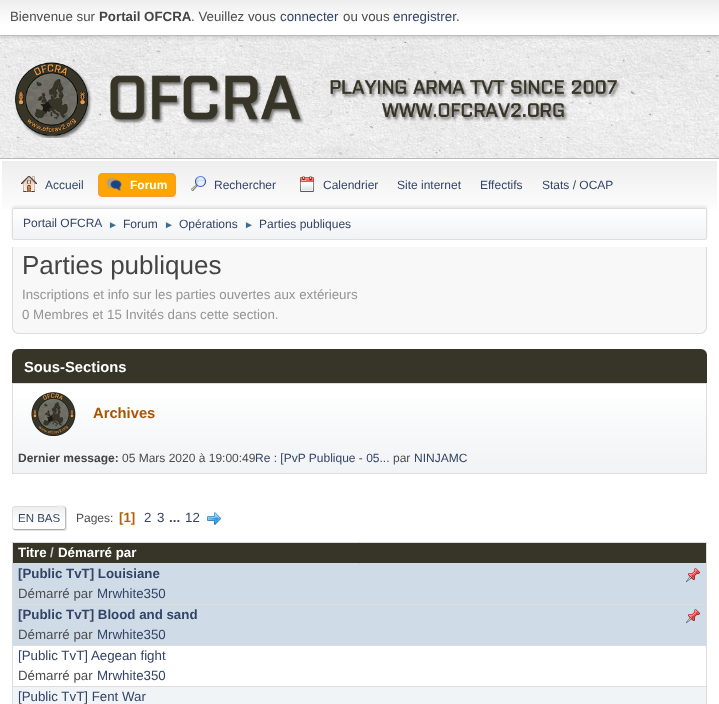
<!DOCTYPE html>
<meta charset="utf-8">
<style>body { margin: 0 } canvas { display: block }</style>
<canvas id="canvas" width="719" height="704"></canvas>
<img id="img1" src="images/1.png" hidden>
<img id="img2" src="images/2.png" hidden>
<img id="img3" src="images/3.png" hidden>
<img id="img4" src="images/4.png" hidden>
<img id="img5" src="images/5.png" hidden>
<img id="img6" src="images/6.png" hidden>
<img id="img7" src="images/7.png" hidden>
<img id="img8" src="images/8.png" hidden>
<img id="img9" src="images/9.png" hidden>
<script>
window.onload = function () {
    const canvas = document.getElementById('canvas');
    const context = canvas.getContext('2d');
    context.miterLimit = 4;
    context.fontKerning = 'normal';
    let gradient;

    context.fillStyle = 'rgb(255, 255, 255)';
    context.fillRect(0, 0, 719, 704);
    context.drawImage(document.getElementById('img1'), 0, 36, 719, 122);
    context.fillStyle = 'rgba(0, 0, 0, 0.16)';
    context.filter = 'blur(2px)';
    context.beginPath();
    context.rect(0, 1, 719, 36);
    context.fill();
    context.filter = 'none';
    gradient = context.createLinearGradient(360, 0, 360, 35);
    gradient.addColorStop(0, 'rgb(238, 238, 238)');
    gradient.addColorStop(0.7, 'rgb(255, 255, 255)');
    context.fillStyle = gradient;
    context.fillRect(0, 0, 719, 35);
    context.fillStyle = 'rgb(187, 187, 187)';
    context.fillRect(0, 35, 719, 1);
    context.drawImage(document.getElementById('img2'), 15, 62, 606, 76);
    context.fillStyle = 'rgb(184, 184, 184)';
    context.fillRect(0, 158, 719, 1);
    gradient = context.createLinearGradient(360, 161, 360, 242);
    gradient.addColorStop(0, 'rgb(238, 238, 238)');
    gradient.addColorStop(0.7, 'rgb(255, 255, 255)');
    context.fillStyle = gradient;
    context.fillRect(2, 161, 715, 48);
    context.drawImage(document.getElementById('img3'), 21, 176, 16, 16);
    context.fillStyle = 'rgb(255, 165, 0)';
    context.beginPath();
    context.roundRect(98.5, 173.5, 77, 23, 3.5);
    context.fill();
    context.strokeStyle = 'rgb(244, 154, 58)';
    context.stroke();
    context.drawImage(document.getElementById('img4'), 106, 177, 16, 14);
    context.drawImage(document.getElementById('img5'), 191, 176, 15, 15);
    context.drawImage(document.getElementById('img6'), 300, 176, 14, 16);
    context.fillStyle = 'rgba(0, 0, 0, 0.08)';
    context.filter = 'blur(1px)';
    context.beginPath();
    context.roundRect(12, 206, 695, 32, 2);
    context.fill();
    context.filter = 'none';
    context.save();
    context.beginPath();
    context.roundRect(12, 208, 695, 32, 2);
    context.clip();
    gradient = context.createLinearGradient(360, 209, 360, 239);
    gradient.addColorStop(0, 'rgb(255, 255, 255)');
    gradient.addColorStop(0.95, 'rgb(241, 243, 245)');
    context.fillStyle = gradient;
    context.fillRect(12, 209, 695, 30);
    context.restore();
    context.beginPath();
    context.roundRect(12.5, 208.5, 694, 31, 1.5);
    context.strokeStyle = 'rgb(221, 221, 221)';
    context.stroke();
    context.fillStyle = 'rgb(248, 248, 248)';
    context.beginPath();
    context.roundRect(12, 247, 695, 87, [0, 0, 7, 7]);
    context.fill();
    context.save();
    context.beginPath();
    context.rect(12, 247, 695, 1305);
    context.clip();
    context.fillStyle = 'rgb(221, 221, 221)';
    context.beginPath();
    context.moveTo(12, 240);
    context.lineTo(707, 240);
    context.lineTo(707, 327);
    context.bezierCurveTo(707, 331, 704, 334, 700, 334);
    context.lineTo(19, 334);
    context.bezierCurveTo(15, 334, 12, 331, 12, 327);
    context.closePath();
    context.moveTo(13, 240);
    context.lineTo(706, 240);
    context.lineTo(706, 327);
    context.bezierCurveTo(706, 330, 703, 333, 700, 333);
    context.lineTo(19, 333);
    context.bezierCurveTo(16, 333, 13, 330, 13, 327);
    context.closePath();
    context.fill('evenodd');
    context.restore();
    context.fillStyle = 'rgb(55, 53, 39)';
    context.beginPath();
    context.roundRect(12, 349, 695, 35, [6, 6, 0, 0]);
    context.fill();
    gradient = context.createLinearGradient(360, 384, 360, 473);
    gradient.addColorStop(0, 'rgb(255, 255, 255)');
    gradient.addColorStop(0.95, 'rgb(241, 243, 245)');
    context.fillStyle = gradient;
    context.fillRect(13, 399, 693, 74);
    context.strokeRect(12.5, 383.5, 694, 90);
    context.drawImage(document.getElementById('img7'), 31, 392, 45, 44);
    context.fillStyle = 'rgba(0, 0, 0, 0.1)';
    context.filter = 'blur(0.5px)';
    context.beginPath();
    context.roundRect(13, 507, 54, 24, 3);
    context.fill();
    context.filter = 'none';
    context.fillStyle = 'rgb(255, 255, 255)';
    context.beginPath();
    context.roundRect(12, 506, 54, 24, 3);
    context.fill();
    context.save();
    context.beginPath();
    context.roundRect(12, 506, 54, 24, 3);
    context.clip();
    gradient = context.createLinearGradient(39, 507, 39, 529);
    gradient.addColorStop(0, 'rgb(238, 238, 238)');
    gradient.addColorStop(0.7, 'rgb(255, 255, 255)');
    context.fillStyle = gradient;
    context.fillRect(12, 507, 54, 22);
    context.restore();
    context.beginPath();
    context.moveTo(65, 507);
    context.bezierCurveTo(65, 507.5, 65.5, 508.5, 65.5, 509);
    context.lineTo(65.5, 527);
    context.bezierCurveTo(65.5, 527.5, 65, 528.5, 65, 529);
    context.strokeStyle = 'rgb(187, 187, 187)';
    context.stroke();
    context.beginPath();
    context.moveTo(65, 529);
    context.lineTo(63, 529.5);
    context.lineTo(15, 529.5);
    context.lineTo(13, 529);
    context.strokeStyle = 'rgb(170, 170, 170)';
    context.stroke();
    context.save();
    context.beginPath();
    context.rect(12, 494, 695, 48);
    context.clip();
    context.beginPath();
    context.moveTo(13, 529);
    context.bezierCurveTo(11.5, 527, 12.5, 520, 12.5, 518);
    context.bezierCurveTo(12.5, 505, 10.5, 506.5, 23, 506.5);
    context.lineTo(55, 506.5);
    context.bezierCurveTo(58.5, 506.5, 62.5, 505, 65, 507);
    context.strokeStyle = 'rgb(221, 221, 221)';
    context.stroke();
    context.restore();
    context.drawImage(document.getElementById('img8'), 207, 512, 14, 13);
    context.fillStyle = 'rgb(55, 53, 39)';
    context.beginPath();
    context.rect(12.5, 542.5, 694, 21);
    context.fill();
    context.strokeStyle = 'rgb(221, 221, 221)';
    context.stroke();
    context.fillStyle = 'rgb(207, 220, 232)';
    context.fillRect(13, 564, 693, 40);
    context.fillStyle = 'rgb(221, 221, 221)';
    context.fillRect(706, 564, 1, 140);
    context.fillRect(12, 604, 695, 1);
    context.fillRect(12, 564, 1, 41);
    context.drawImage(document.getElementById('img9'), 686, 568, 14, 14);
    context.fillStyle = 'rgb(207, 220, 232)';
    context.fillRect(13, 605, 693, 40);
    context.fillStyle = 'rgb(221, 221, 221)';
    context.fillRect(12, 645, 695, 1);
    context.fillRect(12, 605, 1, 41);
    context.drawImage(document.getElementById('img9'), 686, 609, 14, 14);
    context.fillRect(12, 686, 695, 1);
    context.fillRect(12, 646, 1, 58);
    context.fillStyle = 'rgb(240, 244, 247)';
    context.fillRect(13, 687, 693, 17);
    context.font = '13.3px Liberation Sans';
    context.fillStyle = 'rgb(77, 77, 77)';
    context.fillText('Bienvenue sur', 10, 21);
    context.font = 'bold 13.3px Liberation Sans';
    context.fillStyle = 'rgb(68, 68, 68)';
    context.fillText('Portail OFCRA', 99, 21);
    context.font = '13.3px Liberation Sans';
    context.fillStyle = 'rgb(77, 77, 77)';
    context.fillText('. Veuillez vous', 191, 21);
    context.fillStyle = 'rgb(51, 68, 102)';
    context.fillText('connecter', 280, 21);
    context.fillStyle = 'rgb(77, 77, 77)';
    context.fillText('ou vous', 343, 21);
    context.fillStyle = 'rgb(51, 68, 102)';
    context.fillText('enregistrer', 393, 21);
    context.fillStyle = 'rgb(77, 77, 77)';
    context.fillText('.', 456, 21);
    context.font = '12px Liberation Sans';
    context.fillStyle = 'rgb(51, 68, 102)';
    context.fillText('Accueil', 45, 189);
    context.font = 'bold 12px Liberation Sans';
    context.fillStyle = 'rgb(255, 255, 255)';
    context.fillText('Forum', 130, 189);
    context.font = '12px Liberation Sans';
    context.fillStyle = 'rgb(51, 68, 102)';
    context.fillText('Rechercher', 214, 189);
    context.fillText('Calendrier', 323, 189);
    context.fillText('Site internet', 397, 189);
    context.fillText('Effectifs', 480, 189);
    context.fillText('Stats / OCAP', 542, 189);
    context.fillText('Portail OFCRA', 23, 227);
    context.font = '10px Liberation Sans';
    context.fillStyle = 'rgb(63, 107, 140)';
    context.fillText('►', 108, 228);
    context.font = '12px Liberation Sans';
    context.fillStyle = 'rgb(51, 68, 102)';
    context.fillText('Forum', 123, 228);
    context.font = '10px Liberation Sans';
    context.fillStyle = 'rgb(63, 107, 140)';
    context.fillText('►', 164, 228);
    context.font = '12px Liberation Sans';
    context.fillStyle = 'rgb(51, 68, 102)';
    context.fillText('Opérations', 179, 228);
    context.font = '10px Liberation Sans';
    context.fillStyle = 'rgb(63, 107, 140)';
    context.fillText('►', 244, 228);
    context.font = '12px Liberation Sans';
    context.fillStyle = 'rgb(51, 68, 102)';
    context.fillText('Parties publiques', 259, 228);
    context.font = '26px Liberation Sans';
    context.fillStyle = 'rgb(68, 68, 68)';
    context.fillText('Parties publiques', 22, 274);
    context.font = '13.3px Liberation Sans';
    context.fillStyle = 'rgb(149, 149, 149)';
    context.fillText('Inscriptions et info sur les parties ouvertes aux extérieurs', 22, 299);
    context.fillText('0 Membres et 15 Invités dans cette section.', 22, 319);
    context.font = 'bold 14.75px Liberation Sans';
    context.fillStyle = 'rgb(255, 255, 255)';
    context.fillText('Sous-Sections', 24, 372);
    context.fillStyle = 'rgb(168, 84, 0)';
    context.fillText('Archives', 93, 418);
    context.font = 'bold 12px Liberation Sans';
    context.fillStyle = 'rgb(68, 68, 68)';
    context.fillText('Dernier message:', 18, 462);
    context.font = '12px Liberation Sans';
    context.fillStyle = 'rgb(77, 77, 77)';
    context.fillText('05 Mars 2020 à 19:00:49', 122, 462);
    context.fillStyle = 'rgb(51, 68, 102)';
    context.fillText('Re : [PvP Publique - 05...', 255, 462);
    context.fillStyle = 'rgb(77, 77, 77)';
    context.fillText('par', 393, 462);
    context.fillStyle = 'rgb(51, 68, 102)';
    context.fillText('NINJAMC', 414, 462);
    context.font = '11.5px Liberation Sans';
    context.fillText('EN BAS', 18, 522);
    context.font = '12px Liberation Sans';
    context.fillStyle = 'rgb(77, 77, 77)';
    context.fillText('Pages:', 76, 522);
    context.font = 'bold 13.3px Liberation Sans';
    context.fillStyle = 'rgb(180, 97, 0)';
    context.fillText('[1]', 119, 522);
    context.font = '13.3px Liberation Sans';
    context.fillStyle = 'rgb(51, 68, 102)';
    context.fillText('2', 144, 522);
    context.fillText('3', 157, 522);
    context.font = 'bold 13.3px Liberation Sans';
    context.fillStyle = 'rgb(77, 77, 77)';
    context.fillText('...', 169, 522);
    context.font = '13.3px Liberation Sans';
    context.fillStyle = 'rgb(51, 68, 102)';
    context.fillText('12', 185, 522);
    context.font = 'bold 13.3px Liberation Sans';
    context.fillStyle = 'rgb(255, 255, 255)';
    context.fillText('Titre', 18, 557);
    context.fillStyle = 'rgb(204, 204, 204)';
    context.fillText('/', 50, 557);
    context.fillStyle = 'rgb(255, 255, 255)';
    context.fillText('Démarré par', 58, 557);
    context.fillStyle = 'rgb(51, 68, 102)';
    context.fillText('[Public TvT] Louisiane', 18, 578);
    context.font = '13.3px Liberation Sans';
    context.fillStyle = 'rgb(77, 77, 77)';
    context.fillText('Démarré par', 18, 598);
    context.fillStyle = 'rgb(51, 68, 102)';
    context.fillText('Mrwhite350', 97, 598);
    context.font = 'bold 13.3px Liberation Sans';
    context.fillText('[Public TvT] Blood and sand', 18, 619);
    context.font = '13.3px Liberation Sans';
    context.fillStyle = 'rgb(77, 77, 77)';
    context.fillText('Démarré par', 18, 639);
    context.fillStyle = 'rgb(51, 68, 102)';
    context.fillText('Mrwhite350', 97, 639);
    context.fillText('[Public TvT] Aegean fight', 18, 660);
    context.fillStyle = 'rgb(77, 77, 77)';
    context.fillText('Démarré par', 18, 680);
    context.fillStyle = 'rgb(51, 68, 102)';
    context.fillText('Mrwhite350', 97, 680);
    context.fillText('[Public TvT] Fent War', 18, 701);
};
</script>
